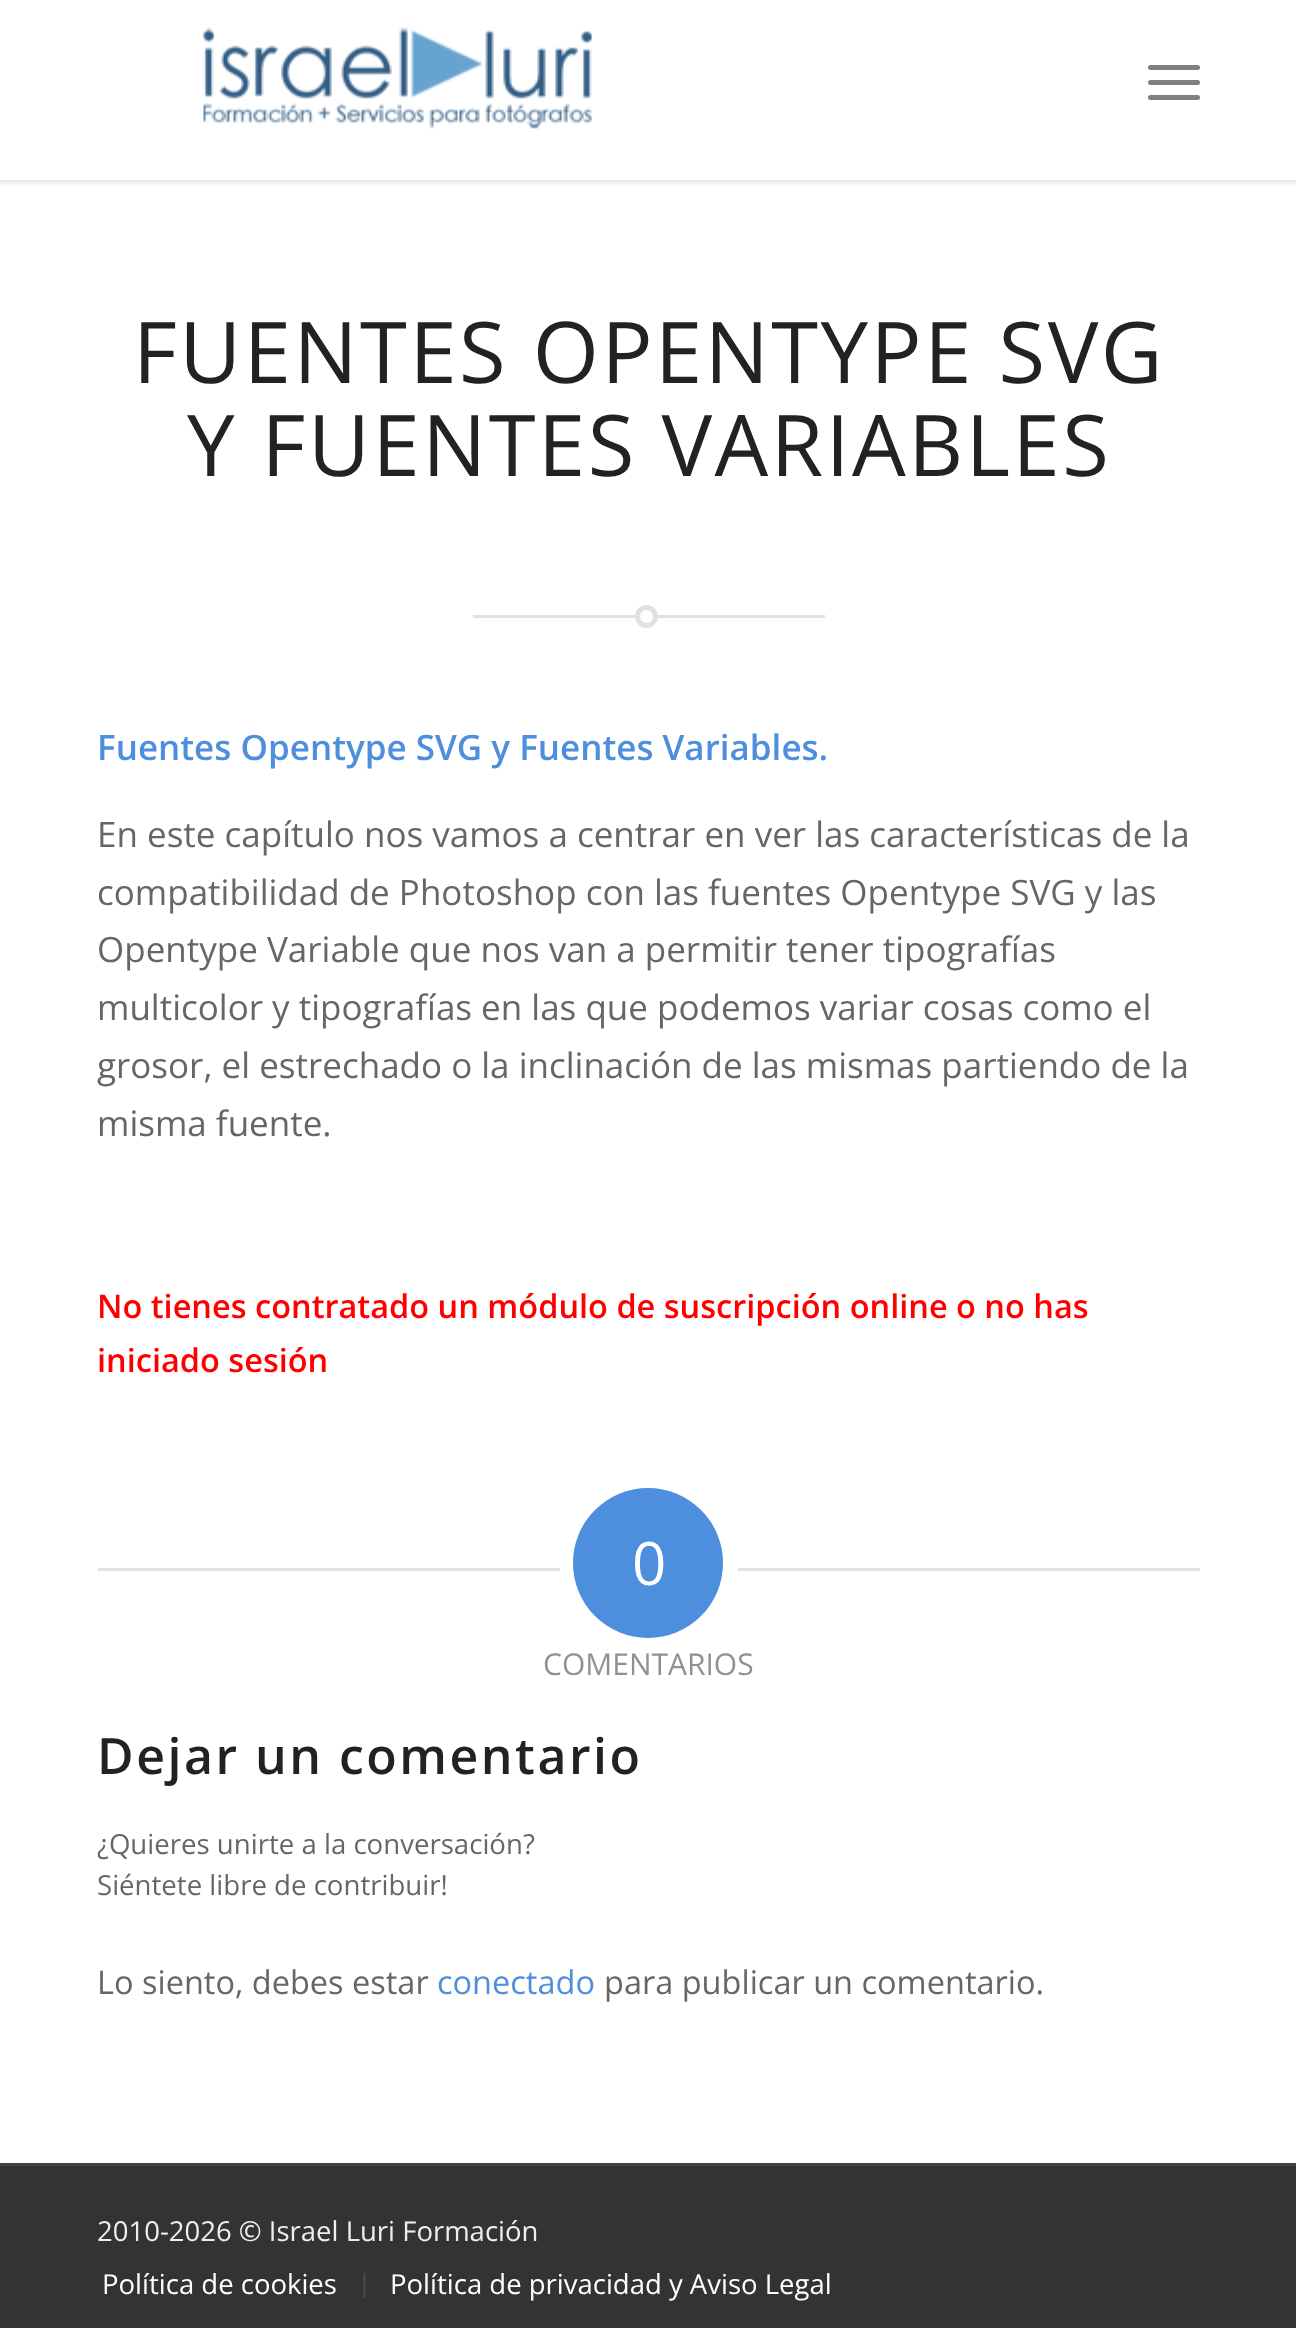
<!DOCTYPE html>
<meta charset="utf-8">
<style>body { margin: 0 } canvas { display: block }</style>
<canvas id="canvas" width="1296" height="2328"></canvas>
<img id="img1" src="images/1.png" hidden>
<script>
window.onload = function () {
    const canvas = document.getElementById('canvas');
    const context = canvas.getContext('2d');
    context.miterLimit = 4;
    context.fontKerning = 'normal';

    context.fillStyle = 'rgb(255, 255, 255)';
    context.fillRect(0, 0, 1296, 2328);
    context.save();
    context.beginPath();
    context.rect(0, 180, 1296, 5);
    context.clip();
    context.fillStyle = 'rgba(0, 0, 0, 0.1)';
    context.filter = 'blur(2.5px)';
    context.beginPath();
    context.rect(-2, -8, 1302, 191);
    context.fill();
    context.filter = 'none';
    context.restore();
    context.drawImage(document.getElementById('img1'), 203, 27, 389, 102);
    context.fillStyle = 'rgb(128, 128, 128)';
    context.beginPath();
    context.roundRect(1148, 80, 52, 5, 2.5);
    context.fill();
    context.beginPath();
    context.roundRect(1148, 65, 52, 5, 2.5);
    context.fill();
    context.beginPath();
    context.roundRect(1148, 95, 52, 5, 2.5);
    context.fill();
    context.fillStyle = 'rgb(225, 225, 225)';
    context.fillRect(473, 615, 352, 3);
    context.fillStyle = 'rgb(255, 255, 255)';
    context.beginPath();
    context.arc(646.5, 616.5, 9, 0, 2 * Math.PI);
    context.fill();
    context.strokeStyle = 'rgb(225, 225, 225)';
    context.lineWidth = 5;
    context.stroke();
    context.fillStyle = 'rgb(225, 225, 225)';
    context.fillRect(98, 1568, 462, 3);
    context.fillStyle = 'rgb(77, 142, 221)';
    context.beginPath();
    context.arc(648, 1563, 75, 0, 2 * Math.PI);
    context.fill();
    context.fillStyle = 'rgb(225, 225, 225)';
    context.fillRect(738, 1568, 462, 3);
    context.fillStyle = 'rgb(51, 51, 51)';
    context.fillRect(0, 2166, 1296, 162);
    context.fillStyle = 'rgb(68, 68, 68)';
    context.fillRect(0, 2163, 1296, 3);
    context.fillRect(363, 2273, 3, 25);
    context.letterSpacing = '2.5px';
    context.font = '85px Open Sans';
    context.fillStyle = 'rgb(34, 34, 34)';
    context.fillText('FUENTES OPENTYPE SVG', 133, 383);
    context.fillText('Y FUENTES VARIABLES', 187, 476);
    context.letterSpacing = '0px';
    context.font = '600 35px Open Sans';
    context.fillStyle = 'rgb(77, 142, 221)';
    context.fillText('Fuentes Opentype SVG y Fuentes Variables.', 97, 760);
    context.font = '35px Open Sans';
    context.fillStyle = 'rgb(102, 102, 102)';
    context.fillText('En este capítulo nos vamos a centrar en ver las características de la', 97, 847);
    context.fillText('compatibilidad de Photoshop con las fuentes Opentype SVG y las', 97, 905);
    context.fillText('Opentype Variable que nos van a permitir tener tipografías', 97, 962);
    context.fillText('multicolor y tipografías en las que podemos variar cosas como el', 97, 1020);
    context.fillText('grosor, el estrechado o la inclinación de las mismas partiendo de la', 97, 1078);
    context.fillText('misma fuente.', 97, 1136);
    context.font = '600 32.5px Open Sans';
    context.fillStyle = 'rgb(255, 0, 0)';
    context.fillText('No tienes contratado un módulo de suscripción online o no has', 97, 1318);
    context.fillText('iniciado sesión', 97, 1372);
    context.font = '60px Open Sans';
    context.fillStyle = 'rgb(255, 255, 255)';
    context.fillText('0', 632, 1585);
    context.font = '30px Open Sans';
    context.fillStyle = 'rgb(145, 145, 145)';
    context.fillText('COMENTARIOS', 543, 1675);
    context.letterSpacing = '2.5px';
    context.font = '600 50px Open Sans';
    context.fillStyle = 'rgb(34, 34, 34)';
    context.fillText('Dejar un comentario', 97, 1774);
    context.letterSpacing = '0px';
    context.font = '27.6px Open Sans';
    context.fillStyle = 'rgb(102, 102, 102)';
    context.fillText('¿Quieres unirte a la conversación?', 97, 1854);
    context.fillText('Siéntete libre de contribuir!', 97, 1895);
    context.font = '32.5px Open Sans';
    context.fillText('Lo siento, debes estar', 97, 1994);
    context.fillStyle = 'rgb(77, 142, 221)';
    context.fillText('conectado', 437, 1994);
    context.fillStyle = 'rgb(102, 102, 102)';
    context.fillText('para publicar un comentario.', 604, 1994);
    context.font = '27.5px Open Sans';
    context.fillStyle = 'rgb(238, 238, 238)';
    context.fillText('2010-2026 © Israel Luri Formación', 97, 2241);
    context.fillStyle = 'rgb(255, 255, 255)';
    context.fillText('Política de cookies', 102, 2294);
    context.fillText('Política de privacidad y Aviso Legal', 390, 2294);
};
</script>
